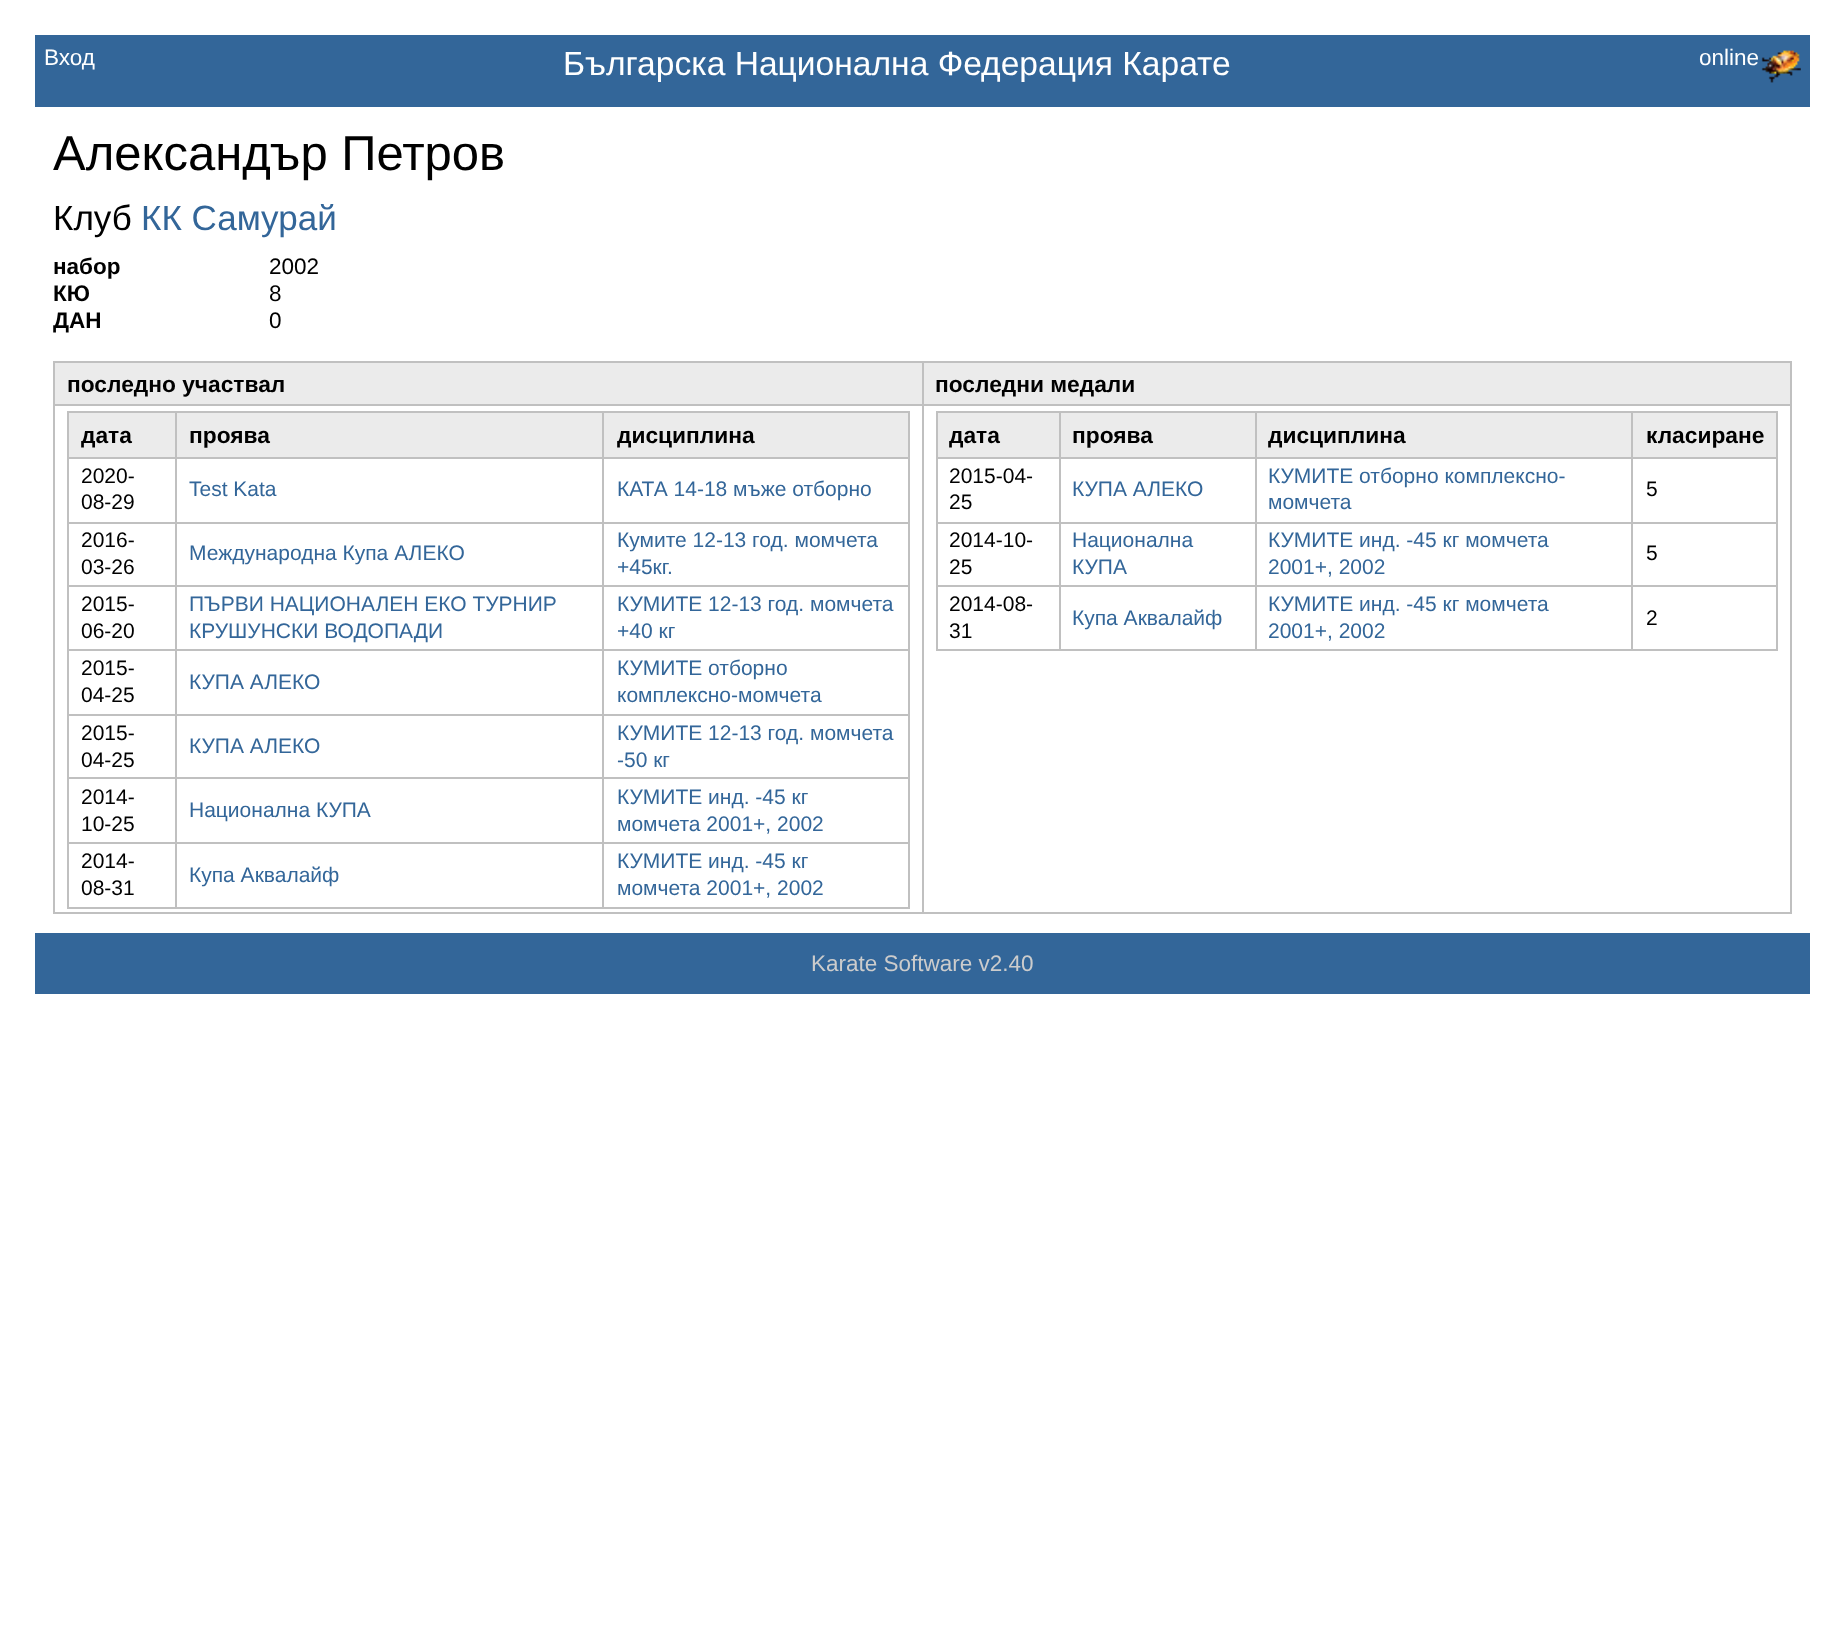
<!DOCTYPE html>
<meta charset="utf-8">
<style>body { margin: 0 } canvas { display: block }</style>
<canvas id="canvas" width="1843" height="1645"></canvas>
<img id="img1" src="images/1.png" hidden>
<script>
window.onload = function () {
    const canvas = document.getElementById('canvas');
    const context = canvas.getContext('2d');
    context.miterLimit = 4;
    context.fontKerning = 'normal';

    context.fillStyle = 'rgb(255, 255, 255)';
    context.fillRect(0, 0, 1843, 1645);
    context.fillStyle = 'rgb(51, 102, 153)';
    context.fillRect(35, 35, 1775, 72);
    context.drawImage(document.getElementById('img1'), 1761, 50, 40, 33);
    context.fillStyle = 'rgb(235, 235, 235)';
    context.fillRect(55, 363, 867, 41);
    context.fillStyle = 'rgb(192, 192, 192)';
    context.fillRect(922, 361, 870, 2);
    context.fillRect(922, 404, 870, 2);
    context.fillRect(1790, 404, 2, 510);
    context.fillRect(922, 912, 870, 2);
    context.fillRect(922, 404, 2, 510);
    context.fillRect(53, 404, 871, 2);
    context.fillRect(922, 361, 2, 45);
    context.fillRect(53, 361, 871, 2);
    context.fillRect(53, 912, 871, 2);
    context.fillRect(53, 404, 2, 510);
    context.fillRect(53, 361, 2, 45);
    context.fillStyle = 'rgb(235, 235, 235)';
    context.fillRect(924, 363, 866, 41);
    context.fillStyle = 'rgb(192, 192, 192)';
    context.fillRect(1790, 361, 2, 45);
    context.fillStyle = 'rgb(235, 235, 235)';
    context.fillRect(69, 413, 106, 44);
    context.fillStyle = 'rgb(192, 192, 192)';
    context.fillRect(602, 411, 308, 2);
    context.fillRect(602, 457, 308, 2);
    context.fillRect(602, 522, 308, 2);
    context.fillRect(602, 585, 308, 2);
    context.fillRect(602, 649, 308, 2);
    context.fillRect(602, 714, 308, 2);
    context.fillRect(602, 777, 308, 2);
    context.fillRect(602, 842, 308, 2);
    context.fillRect(908, 842, 2, 66);
    context.fillRect(602, 907, 308, 2);
    context.fillRect(602, 842, 2, 66);
    context.fillRect(175, 842, 429, 2);
    context.fillRect(602, 777, 2, 67);
    context.fillRect(175, 777, 429, 2);
    context.fillRect(602, 714, 2, 65);
    context.fillRect(175, 714, 429, 2);
    context.fillRect(602, 649, 2, 67);
    context.fillRect(175, 649, 429, 2);
    context.fillRect(602, 585, 2, 66);
    context.fillRect(175, 585, 429, 2);
    context.fillRect(602, 522, 2, 64);
    context.fillRect(175, 522, 429, 2);
    context.fillRect(602, 457, 2, 66);
    context.fillRect(175, 457, 429, 2);
    context.fillRect(602, 411, 2, 48);
    context.fillRect(175, 411, 429, 2);
    context.fillRect(175, 907, 429, 2);
    context.fillRect(175, 842, 2, 66);
    context.fillRect(67, 842, 110, 2);
    context.fillRect(175, 777, 2, 67);
    context.fillRect(67, 777, 110, 2);
    context.fillRect(175, 714, 2, 65);
    context.fillRect(67, 714, 110, 2);
    context.fillRect(175, 649, 2, 67);
    context.fillRect(67, 649, 110, 2);
    context.fillRect(175, 585, 2, 66);
    context.fillRect(67, 585, 110, 2);
    context.fillRect(175, 522, 2, 64);
    context.fillRect(67, 522, 110, 2);
    context.fillRect(175, 457, 2, 66);
    context.fillRect(67, 457, 110, 2);
    context.fillRect(175, 411, 2, 48);
    context.fillRect(67, 411, 110, 2);
    context.fillRect(67, 907, 110, 2);
    context.fillRect(67, 842, 2, 66);
    context.fillRect(67, 777, 2, 67);
    context.fillRect(67, 714, 2, 65);
    context.fillRect(67, 649, 2, 67);
    context.fillRect(67, 585, 2, 66);
    context.fillRect(67, 522, 2, 64);
    context.fillRect(67, 457, 2, 66);
    context.fillRect(67, 411, 2, 48);
    context.fillStyle = 'rgb(235, 235, 235)';
    context.fillRect(177, 413, 425, 44);
    context.fillRect(604, 413, 304, 44);
    context.fillStyle = 'rgb(192, 192, 192)';
    context.fillRect(908, 777, 2, 67);
    context.fillRect(908, 714, 2, 65);
    context.fillRect(908, 649, 2, 67);
    context.fillRect(908, 585, 2, 66);
    context.fillRect(908, 522, 2, 64);
    context.fillRect(908, 457, 2, 66);
    context.fillRect(908, 411, 2, 48);
    context.fillStyle = 'rgb(235, 235, 235)';
    context.fillRect(938, 413, 121, 44);
    context.fillStyle = 'rgb(192, 192, 192)';
    context.fillRect(1631, 411, 147, 2);
    context.fillRect(1631, 457, 147, 2);
    context.fillRect(1631, 522, 147, 2);
    context.fillRect(1631, 585, 147, 2);
    context.fillRect(1776, 585, 2, 66);
    context.fillRect(1631, 649, 147, 2);
    context.fillRect(1631, 585, 2, 66);
    context.fillRect(1255, 585, 378, 2);
    context.fillRect(1631, 522, 2, 64);
    context.fillRect(1255, 522, 378, 2);
    context.fillRect(1631, 457, 2, 66);
    context.fillRect(1255, 457, 378, 2);
    context.fillRect(1631, 411, 2, 48);
    context.fillRect(1255, 411, 378, 2);
    context.fillRect(1255, 649, 378, 2);
    context.fillRect(1255, 585, 2, 66);
    context.fillRect(1059, 585, 198, 2);
    context.fillRect(1255, 522, 2, 64);
    context.fillRect(1059, 522, 198, 2);
    context.fillRect(1255, 457, 2, 66);
    context.fillRect(1059, 457, 198, 2);
    context.fillRect(1255, 411, 2, 48);
    context.fillRect(1059, 411, 198, 2);
    context.fillRect(1059, 649, 198, 2);
    context.fillRect(1059, 585, 2, 66);
    context.fillRect(936, 585, 125, 2);
    context.fillRect(1059, 522, 2, 64);
    context.fillRect(936, 522, 125, 2);
    context.fillRect(1059, 457, 2, 66);
    context.fillRect(936, 457, 125, 2);
    context.fillRect(1059, 411, 2, 48);
    context.fillRect(936, 411, 125, 2);
    context.fillRect(936, 649, 125, 2);
    context.fillRect(936, 585, 2, 66);
    context.fillRect(936, 522, 2, 64);
    context.fillRect(936, 457, 2, 66);
    context.fillRect(936, 411, 2, 48);
    context.fillStyle = 'rgb(235, 235, 235)';
    context.fillRect(1061, 413, 194, 44);
    context.fillRect(1257, 413, 374, 44);
    context.fillRect(1633, 413, 143, 44);
    context.fillStyle = 'rgb(192, 192, 192)';
    context.fillRect(1776, 522, 2, 64);
    context.fillRect(1776, 457, 2, 66);
    context.fillRect(1776, 411, 2, 48);
    context.fillStyle = 'rgb(51, 102, 153)';
    context.fillRect(35, 933, 1775, 61);
    context.font = '22.5px Liberation Sans';
    context.fillStyle = 'rgb(255, 255, 255)';
    context.fillText('Вход', 44, 65);
    context.font = '33.6px Liberation Sans';
    context.fillText('Българска Национална Федерация Карате', 563, 75);
    context.font = '22.5px Liberation Sans';
    context.fillText('online', 1699, 65);
    context.font = '49px Liberation Sans';
    context.fillStyle = 'rgb(0, 0, 0)';
    context.fillText('Александър Петров', 53, 170);
    context.font = '35px Liberation Sans';
    context.fillText('Клуб', 53, 230);
    context.fillStyle = 'rgb(51, 102, 153)';
    context.fillText('КК Самурай', 141, 230);
    context.font = 'bold 22.5px Liberation Sans';
    context.fillStyle = 'rgb(0, 0, 0)';
    context.fillText('набор', 53, 274);
    context.font = '22.5px Liberation Sans';
    context.fillText('2002', 269, 274);
    context.font = 'bold 22.5px Liberation Sans';
    context.fillText('КЮ', 53, 301);
    context.font = '22.5px Liberation Sans';
    context.fillText('8', 269, 301);
    context.font = 'bold 22.5px Liberation Sans';
    context.fillText('ДАН', 53, 328);
    context.font = '22.5px Liberation Sans';
    context.fillText('0', 269, 328);
    context.font = 'bold 22.75px Liberation Sans';
    context.fillText('последно участвал', 67, 392);
    context.fillText('последни медали', 935, 392);
    context.fillText('дата', 81, 443);
    context.fillText('проява', 189, 443);
    context.fillText('дисциплина', 617, 443);
    context.font = '21px Liberation Sans';
    context.fillText('2020-', 81, 483);
    context.fillText('08-29', 81, 509);
    context.fillStyle = 'rgb(51, 102, 153)';
    context.fillText('Test Kata', 189, 496);
    context.fillText('КАТА 14-18 мъже отборно', 617, 496);
    context.fillStyle = 'rgb(0, 0, 0)';
    context.fillText('2016-', 81, 547);
    context.fillText('03-26', 81, 574);
    context.fillStyle = 'rgb(51, 102, 153)';
    context.fillText('Международна Купа АЛЕКО', 189, 560);
    context.fillText('Кумите 12-13 год. момчета', 617, 547);
    context.fillText('+45кг.', 617, 574);
    context.fillStyle = 'rgb(0, 0, 0)';
    context.fillText('2015-', 81, 611);
    context.fillText('06-20', 81, 638);
    context.fillStyle = 'rgb(51, 102, 153)';
    context.fillText('ПЪРВИ НАЦИОНАЛЕН ЕКО ТУРНИР', 189, 611);
    context.fillText('КРУШУНСКИ ВОДОПАДИ', 189, 638);
    context.fillText('КУМИТЕ 12-13 год. момчета', 617, 611);
    context.fillText('+40 кг', 617, 638);
    context.fillStyle = 'rgb(0, 0, 0)';
    context.fillText('2015-', 81, 675);
    context.fillText('04-25', 81, 702);
    context.fillStyle = 'rgb(51, 102, 153)';
    context.fillText('КУПА АЛЕКО', 189, 689);
    context.fillText('КУМИТЕ отборно', 617, 675);
    context.fillText('комплексно-момчета', 617, 702);
    context.fillStyle = 'rgb(0, 0, 0)';
    context.fillText('2015-', 81, 740);
    context.fillText('04-25', 81, 767);
    context.fillStyle = 'rgb(51, 102, 153)';
    context.fillText('КУПА АЛЕКО', 189, 753);
    context.fillText('КУМИТЕ 12-13 год. момчета', 617, 740);
    context.fillText('-50 кг', 617, 767);
    context.fillStyle = 'rgb(0, 0, 0)';
    context.fillText('2014-', 81, 804);
    context.fillText('10-25', 81, 831);
    context.fillStyle = 'rgb(51, 102, 153)';
    context.fillText('Национална КУПА', 189, 817);
    context.fillText('КУМИТЕ инд. -45 кг', 617, 804);
    context.fillText('момчета 2001+, 2002', 617, 831);
    context.fillStyle = 'rgb(0, 0, 0)';
    context.fillText('2014-', 81, 868);
    context.fillText('08-31', 81, 895);
    context.fillStyle = 'rgb(51, 102, 153)';
    context.fillText('Купа Аквалайф', 189, 882);
    context.fillText('КУМИТЕ инд. -45 кг', 617, 868);
    context.fillText('момчета 2001+, 2002', 617, 895);
    context.font = 'bold 22.75px Liberation Sans';
    context.fillStyle = 'rgb(0, 0, 0)';
    context.fillText('дата', 949, 443);
    context.fillText('проява', 1072, 443);
    context.fillText('дисциплина', 1268, 443);
    context.fillText('класиране', 1646, 443);
    context.font = '21px Liberation Sans';
    context.fillText('2015-04-', 949, 483);
    context.fillText('25', 949, 509);
    context.fillStyle = 'rgb(51, 102, 153)';
    context.fillText('КУПА АЛЕКО', 1072, 496);
    context.fillText('КУМИТЕ отборно комплексно-', 1268, 483);
    context.fillText('момчета', 1268, 509);
    context.fillStyle = 'rgb(0, 0, 0)';
    context.fillText('5', 1646, 496);
    context.fillText('2014-10-', 949, 547);
    context.fillText('25', 949, 574);
    context.fillStyle = 'rgb(51, 102, 153)';
    context.fillText('Национална', 1072, 547);
    context.fillText('КУПА', 1072, 574);
    context.fillText('КУМИТЕ инд. -45 кг момчета', 1268, 547);
    context.fillText('2001+, 2002', 1268, 574);
    context.fillStyle = 'rgb(0, 0, 0)';
    context.fillText('5', 1646, 560);
    context.fillText('2014-08-', 949, 611);
    context.fillText('31', 949, 638);
    context.fillStyle = 'rgb(51, 102, 153)';
    context.fillText('Купа Аквалайф', 1072, 625);
    context.fillText('КУМИТЕ инд. -45 кг момчета', 1268, 611);
    context.fillText('2001+, 2002', 1268, 638);
    context.fillStyle = 'rgb(0, 0, 0)';
    context.fillText('2', 1646, 625);
    context.font = '22.5px Liberation Sans';
    context.fillStyle = 'rgb(204, 204, 204)';
    context.fillText('Karate Software v2.40', 811, 971);
};
</script>
